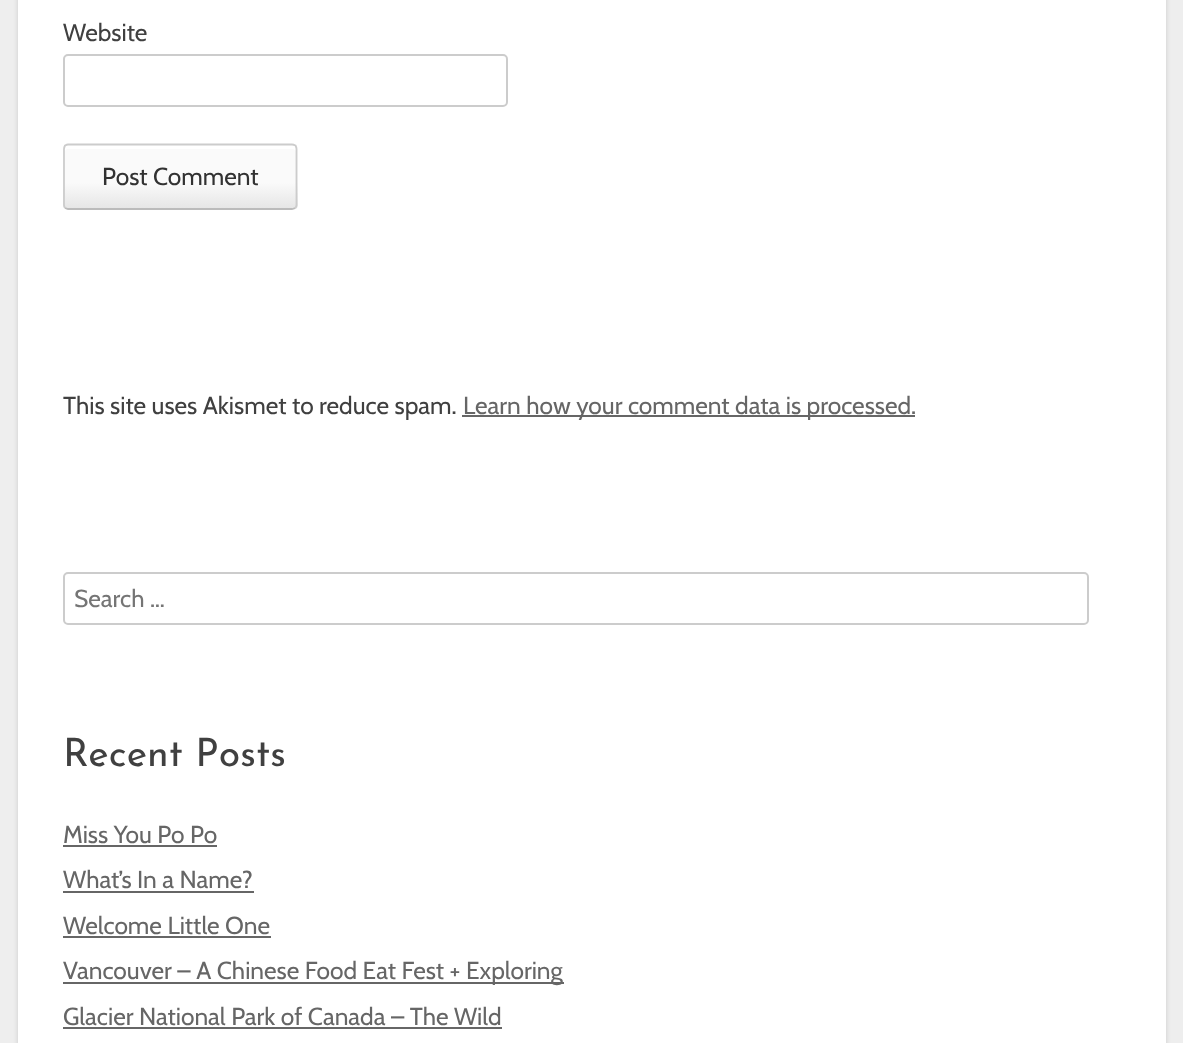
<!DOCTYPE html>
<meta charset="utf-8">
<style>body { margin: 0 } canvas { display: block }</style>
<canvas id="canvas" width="1183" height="1043"></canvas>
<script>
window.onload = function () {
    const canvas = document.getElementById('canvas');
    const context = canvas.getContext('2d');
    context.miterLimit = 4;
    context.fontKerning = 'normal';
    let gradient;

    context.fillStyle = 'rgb(238, 238, 238)';
    context.fillRect(0, 0, 1183, 1043);
    context.fillStyle = 'rgb(204, 204, 204)';
    context.filter = 'blur(2.5px)';
    context.beginPath();
    context.roundRect(18, -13, 1148, 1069, 5);
    context.fill();
    context.filter = 'none';
    context.fillStyle = 'rgb(255, 255, 255)';
    context.fillRect(18, 0, 1148, 1043);
    context.beginPath();
    context.roundRect(64, 55, 443, 51, 4);
    context.strokeStyle = 'rgb(204, 204, 204)';
    context.lineWidth = 2;
    context.stroke();
    context.save();
    context.beginPath();
    context.roundRect(63, 144, 235, 66, 5);
    context.clip();
    gradient = context.createLinearGradient(180, 145, 180, 208);
    gradient.addColorStop(0.6, 'rgb(250, 250, 250)');
    gradient.addColorStop(1, 'rgb(230, 230, 230)');
    context.fillStyle = gradient;
    context.fillRect(63, 145, 235, 63);
    gradient = context.createLinearGradient(180, 208, 180, 271);
    gradient.addColorStop(0.6, 'rgb(250, 250, 250)');
    gradient.addColorStop(1, 'rgb(230, 230, 230)');
    context.fillStyle = gradient;
    context.fillRect(63, 208, 235, 2);
    context.restore();
    context.beginPath();
    context.moveTo(68, 149);
    context.lineTo(292, 149);
    context.bezierCurveTo(294, 149, 296, 150, 296, 152);
    context.lineTo(296, 149);
    context.bezierCurveTo(296, 147, 294, 145, 292, 145);
    context.lineTo(69, 145);
    context.bezierCurveTo(67, 145, 65, 147, 65, 149);
    context.lineTo(65, 152);
    context.bezierCurveTo(65, 150, 66, 149, 68, 149);
    context.closePath();
    context.fill();
    context.beginPath();
    context.moveTo(295.5, 208);
    context.lineTo(292, 209);
    context.lineTo(68, 209);
    context.lineTo(65, 208);
    context.strokeStyle = 'rgb(187, 187, 187)';
    context.lineWidth = 1.8;
    context.stroke();
    context.beginPath();
    context.moveTo(65, 208);
    context.bezierCurveTo(64.5, 207, 64, 206, 64, 205);
    context.lineTo(64, 149);
    context.bezierCurveTo(64, 147.5, 64.5, 146.5, 65, 145.5);
    context.bezierCurveTo(66, 145, 67, 144.5, 68, 144.5);
    context.lineTo(292, 144.5);
    context.bezierCurveTo(293.5, 144.5, 294.5, 145, 295.5, 145.5);
    context.bezierCurveTo(296, 146.5, 296.5, 147.5, 296.5, 149);
    context.lineTo(296.5, 205);
    context.bezierCurveTo(296.5, 206, 296, 207, 295.5, 208);
    context.strokeStyle = 'rgb(204, 204, 204)';
    context.stroke();
    context.fillStyle = 'rgb(102, 102, 102)';
    context.fillRect(462, 415, 453, 2);
    context.beginPath();
    context.roundRect(64, 573, 1024, 51, 4);
    context.lineWidth = 2;
    context.stroke();
    context.fillRect(63, 845, 154, 2);
    context.fillRect(63, 891, 191, 2);
    context.fillRect(63, 936, 208, 2);
    context.fillRect(63, 982, 501, 2);
    context.fillRect(63, 1027, 439, 2);
    context.font = '24.5px Cabin';
    context.fillStyle = 'rgb(64, 64, 64)';
    context.fillText('Website', 63, 41);
    context.fillStyle = 'rgb(50, 50, 50)';
    context.fillText('Post Comment', 102, 185);
    context.fillStyle = 'rgb(64, 64, 64)';
    context.fillText('This site uses Akismet to reduce spam.', 63, 414);
    context.fillStyle = 'rgb(102, 102, 102)';
    context.fillText('Learn how your comment data is processed.', 463, 414);
    context.fillStyle = 'rgb(117, 117, 117)';
    context.fillText('Search …', 74, 607);
    context.font = '39.25px Josefin Sans';
    context.fillStyle = 'rgb(64, 64, 64)';
    context.fillText('Recent Posts', 63, 766);
    context.font = '24.5px Cabin';
    context.fillStyle = 'rgb(102, 102, 102)';
    context.fillText('Miss You Po Po', 63, 843);
    context.fillText('What’s In a Name?', 63, 888);
    context.fillText('Welcome Little One', 63, 934);
    context.fillText('Vancouver – A Chinese Food Eat Fest + Exploring', 63, 979);
    context.fillText('Glacier National Park of Canada – The Wild', 63, 1025);
};
</script>
